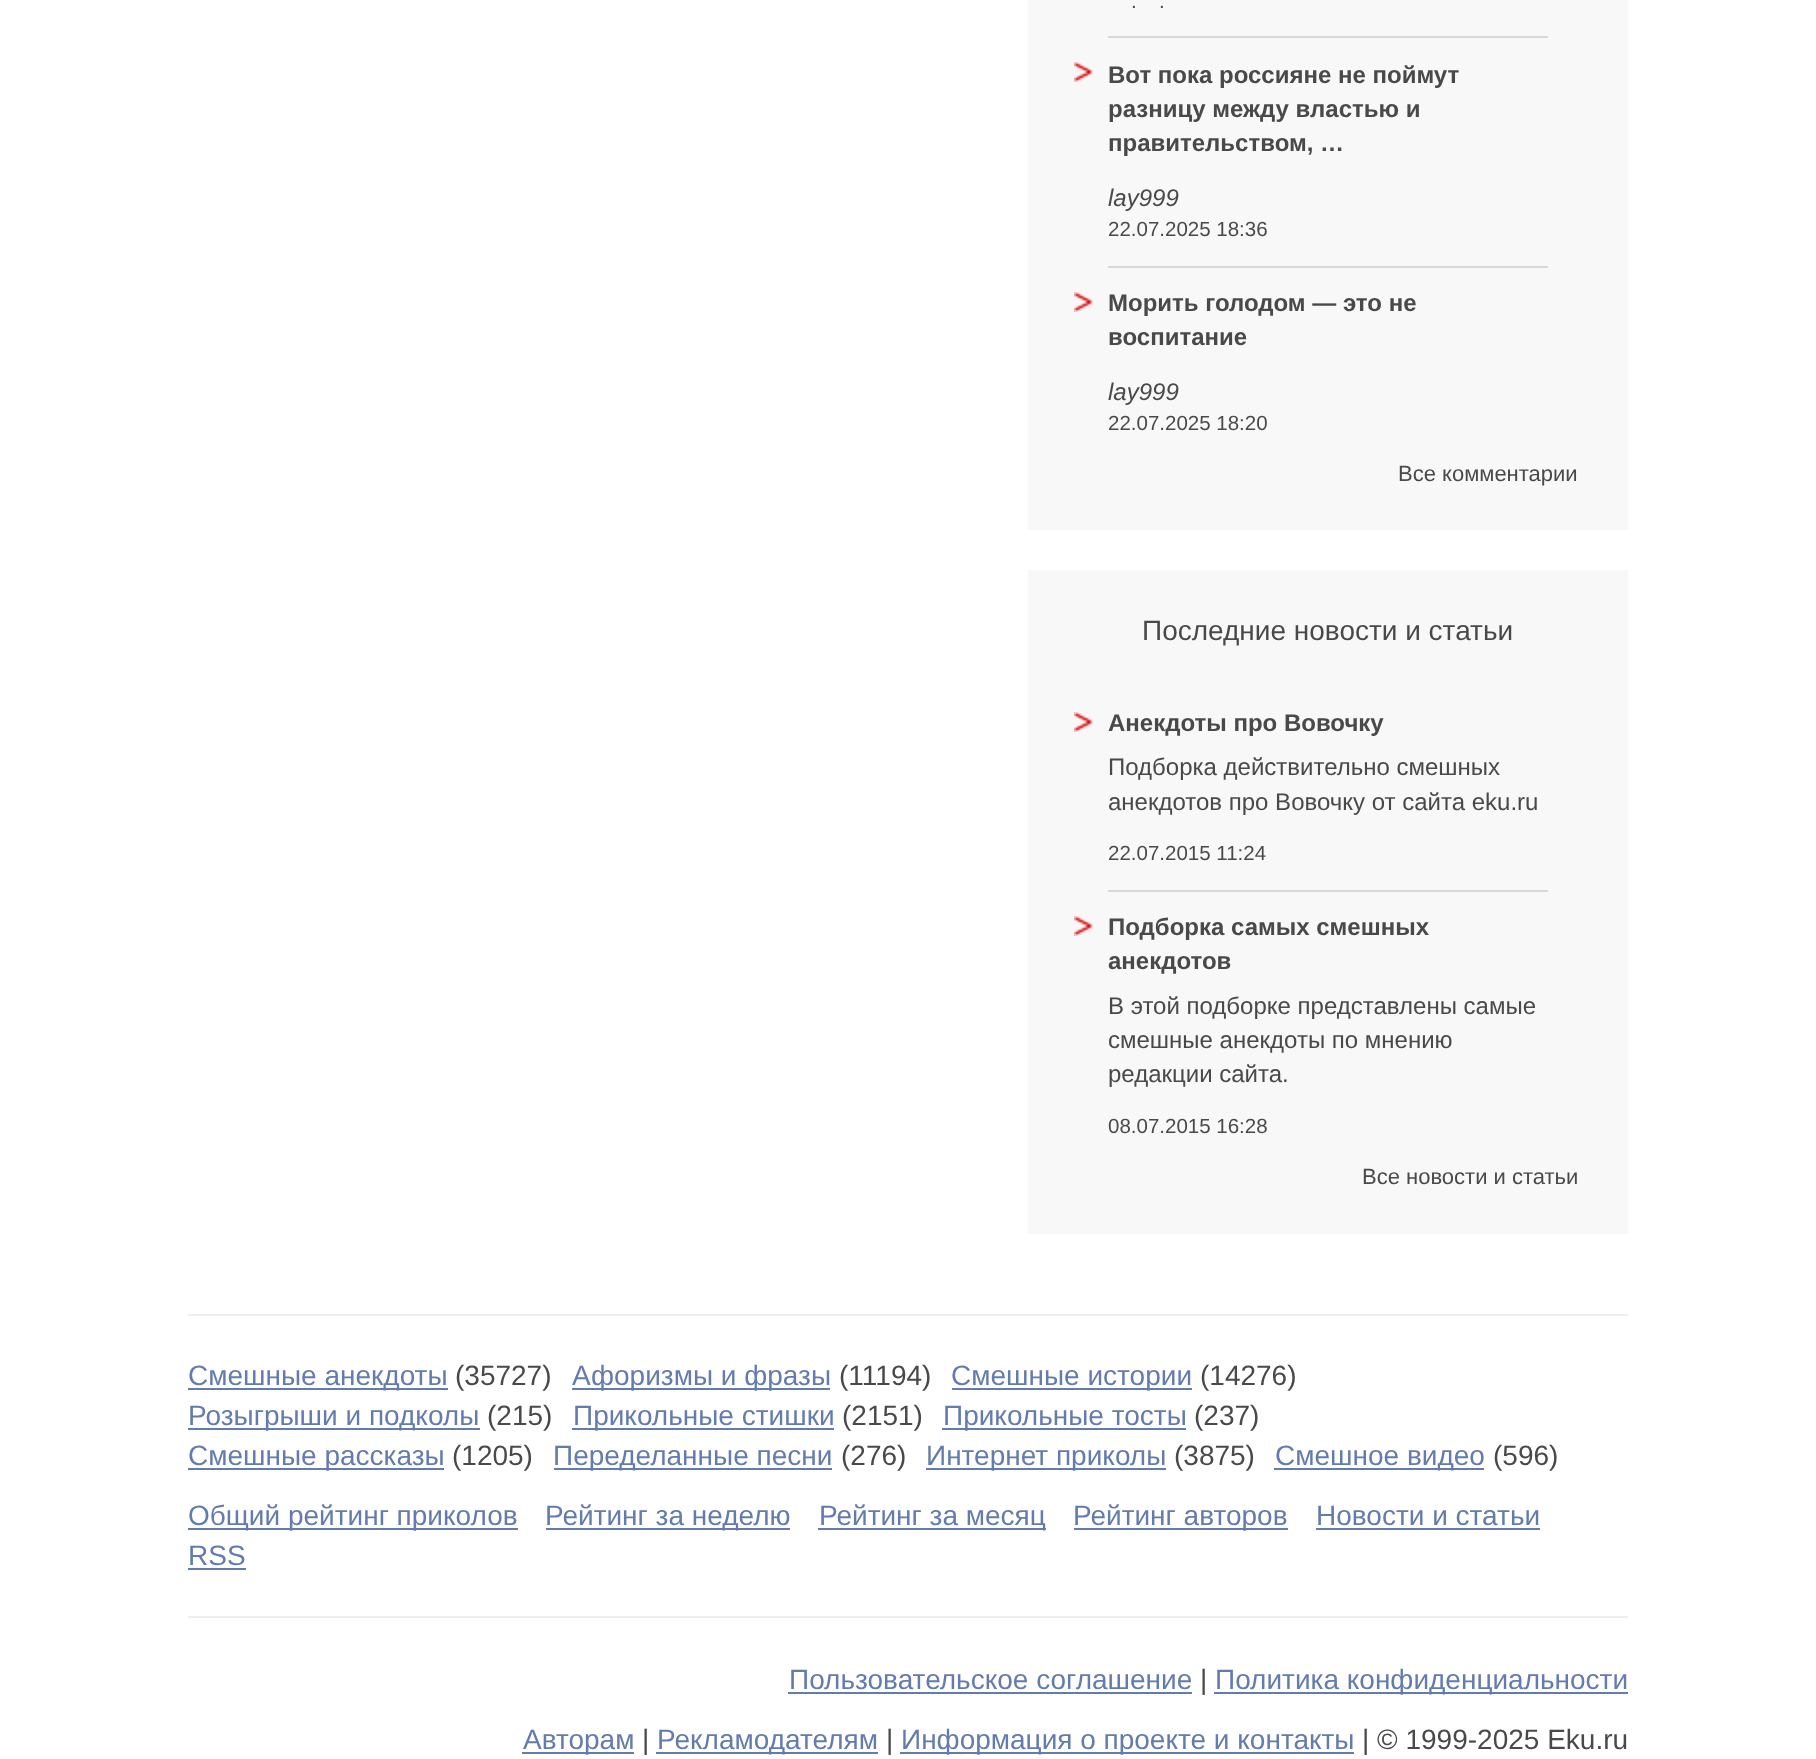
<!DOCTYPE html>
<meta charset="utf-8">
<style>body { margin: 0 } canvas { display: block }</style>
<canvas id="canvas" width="1816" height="1759"></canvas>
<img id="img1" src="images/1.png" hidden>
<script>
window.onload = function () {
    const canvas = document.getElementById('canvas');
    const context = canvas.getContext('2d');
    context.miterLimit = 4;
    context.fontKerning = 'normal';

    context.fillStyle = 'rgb(255, 255, 255)';
    context.fillRect(0, 0, 1816, 1759);
    context.fillStyle = 'rgb(248, 248, 248)';
    context.fillRect(1028, 0, 600, 530);
    context.fillStyle = 'rgb(216, 216, 216)';
    context.fillRect(1108, 36, 440, 2);
    context.drawImage(document.getElementById('img1'), 1074, 62, 19, 20);
    context.fillRect(1108, 266, 440, 2);
    context.drawImage(document.getElementById('img1'), 1074, 292, 19, 20);
    context.fillStyle = 'rgb(248, 248, 248)';
    context.fillRect(1028, 570, 600, 664);
    context.drawImage(document.getElementById('img1'), 1074, 712, 19, 20);
    context.fillStyle = 'rgb(216, 216, 216)';
    context.fillRect(1108, 890, 440, 2);
    context.drawImage(document.getElementById('img1'), 1074, 916, 19, 20);
    context.fillStyle = 'rgb(238, 238, 238)';
    context.fillRect(188, 1314, 1440, 2);
    context.fillStyle = 'rgb(99, 123, 173)';
    context.fillRect(188, 1388, 260, 2);
    context.fillRect(572, 1388, 258, 2);
    context.fillRect(952, 1388, 240, 2);
    context.fillRect(188, 1428, 292, 2);
    context.fillRect(572, 1428, 262, 2);
    context.fillRect(942, 1428, 244, 2);
    context.fillRect(188, 1468, 256, 2);
    context.fillRect(554, 1468, 278, 2);
    context.fillRect(926, 1468, 240, 2);
    context.fillRect(1274, 1468, 210, 2);
    context.fillRect(188, 1528, 330, 2);
    context.fillRect(546, 1528, 244, 2);
    context.fillRect(818, 1528, 228, 2);
    context.fillRect(1074, 1528, 214, 2);
    context.fillRect(1316, 1528, 224, 2);
    context.fillRect(188, 1568, 58, 2);
    context.fillStyle = 'rgb(238, 238, 238)';
    context.fillRect(188, 1616, 1440, 2);
    context.fillStyle = 'rgb(99, 123, 173)';
    context.fillRect(788, 1692, 404, 2);
    context.fillRect(1214, 1692, 414, 2);
    context.fillRect(522, 1752, 112, 2);
    context.fillRect(656, 1752, 222, 2);
    context.fillRect(900, 1752, 454, 2);
    context.font = '20.5px Liberation Sans';
    context.fillStyle = 'rgb(73, 73, 73)';
    context.fillText('.', 1131, 8);
    context.fillText('.', 1159, 8);
    context.font = 'bold 24px Liberation Sans';
    context.fillText('Вот пока россияне не поймут', 1108, 83);
    context.fillText('разницу между властью и', 1108, 117);
    context.fillText('правительством, …', 1108, 151);
    context.font = 'italic 24px Liberation Sans';
    context.fillText('lay999', 1108, 206);
    context.font = '20.5px Liberation Sans';
    context.fillText('22.07.2025 18:36', 1108, 236);
    context.font = 'bold 24px Liberation Sans';
    context.fillText('Морить голодом — это не', 1108, 311);
    context.fillText('воспитание', 1108, 345);
    context.font = 'italic 24px Liberation Sans';
    context.fillText('lay999', 1108, 400);
    context.font = '20.5px Liberation Sans';
    context.fillText('22.07.2025 18:20', 1108, 430);
    context.font = '22px Liberation Sans';
    context.fillText('Все комментарии', 1398, 481);
    context.font = '28px Liberation Sans';
    context.fillText('Последние новости и статьи', 1142, 640);
    context.font = 'bold 24px Liberation Sans';
    context.fillText('Анекдоты про Вовочку', 1108, 731);
    context.font = '24px Liberation Sans';
    context.fillText('Подборка действительно смешных', 1108, 775);
    context.fillText('анекдотов про Вовочку от сайта eku.ru', 1108, 810);
    context.font = '20.5px Liberation Sans';
    context.fillText('22.07.2015 11:24', 1108, 860);
    context.font = 'bold 24px Liberation Sans';
    context.fillText('Подборка самых смешных', 1108, 935);
    context.fillText('анекдотов', 1108, 969);
    context.font = '24px Liberation Sans';
    context.fillText('В этой подборке представлены самые', 1108, 1014);
    context.fillText('смешные анекдоты по мнению', 1108, 1048);
    context.fillText('редакции сайта.', 1108, 1082);
    context.font = '20.5px Liberation Sans';
    context.fillText('08.07.2015 16:28', 1108, 1133);
    context.font = '22px Liberation Sans';
    context.fillText('Все новости и статьи', 1362, 1184);
    context.font = '28px Liberation Sans';
    context.fillStyle = 'rgb(99, 123, 173)';
    context.fillText('Смешные анекдоты', 188, 1385);
    context.fillStyle = 'rgb(73, 73, 73)';
    context.fillText('(35727)', 455, 1385);
    context.fillStyle = 'rgb(99, 123, 173)';
    context.fillText('Афоризмы и фразы', 572, 1385);
    context.fillStyle = 'rgb(73, 73, 73)';
    context.fillText('(11194)', 839, 1385);
    context.fillStyle = 'rgb(99, 123, 173)';
    context.fillText('Смешные истории', 951, 1385);
    context.fillStyle = 'rgb(73, 73, 73)';
    context.fillText('(14276)', 1200, 1385);
    context.fillStyle = 'rgb(99, 123, 173)';
    context.fillText('Розыгрыши и подколы', 188, 1425);
    context.fillStyle = 'rgb(73, 73, 73)';
    context.fillText('(215)', 487, 1425);
    context.fillStyle = 'rgb(99, 123, 173)';
    context.fillText('Прикольные стишки', 573, 1425);
    context.fillStyle = 'rgb(73, 73, 73)';
    context.fillText('(2151)', 842, 1425);
    context.fillStyle = 'rgb(99, 123, 173)';
    context.fillText('Прикольные тосты', 943, 1425);
    context.fillStyle = 'rgb(73, 73, 73)';
    context.fillText('(237)', 1194, 1425);
    context.fillStyle = 'rgb(99, 123, 173)';
    context.fillText('Смешные рассказы', 188, 1465);
    context.fillStyle = 'rgb(73, 73, 73)';
    context.fillText('(1205)', 452, 1465);
    context.fillStyle = 'rgb(99, 123, 173)';
    context.fillText('Переделанные песни', 553, 1465);
    context.fillStyle = 'rgb(73, 73, 73)';
    context.fillText('(276)', 841, 1465);
    context.fillStyle = 'rgb(99, 123, 173)';
    context.fillText('Интернет приколы', 926, 1465);
    context.fillStyle = 'rgb(73, 73, 73)';
    context.fillText('(3875)', 1174, 1465);
    context.fillStyle = 'rgb(99, 123, 173)';
    context.fillText('Смешное видео', 1275, 1465);
    context.fillStyle = 'rgb(73, 73, 73)';
    context.fillText('(596)', 1493, 1465);
    context.fillStyle = 'rgb(99, 123, 173)';
    context.fillText('Общий рейтинг приколов', 188, 1525);
    context.fillText('Рейтинг за неделю', 545, 1525);
    context.fillText('Рейтинг за месяц', 819, 1525);
    context.fillText('Рейтинг авторов', 1073, 1525);
    context.fillText('Новости и статьи', 1316, 1525);
    context.fillText('RSS', 188, 1565);
    context.fillText('Пользовательское соглашение', 789, 1689);
    context.fillStyle = 'rgb(73, 73, 73)';
    context.fillText('|', 1200, 1689);
    context.fillStyle = 'rgb(99, 123, 173)';
    context.fillText('Политика конфиденциальности', 1215, 1689);
    context.fillText('Авторам', 523, 1749);
    context.fillStyle = 'rgb(73, 73, 73)';
    context.fillText('|', 642, 1749);
    context.fillStyle = 'rgb(99, 123, 173)';
    context.fillText('Рекламодателям', 657, 1749);
    context.fillStyle = 'rgb(73, 73, 73)';
    context.fillText('|', 886, 1749);
    context.fillStyle = 'rgb(99, 123, 173)';
    context.fillText('Информация о проекте и контакты', 901, 1749);
    context.fillStyle = 'rgb(73, 73, 73)';
    context.fillText('| © 1999-2025 Eku.ru', 1362, 1749);
};
</script>
